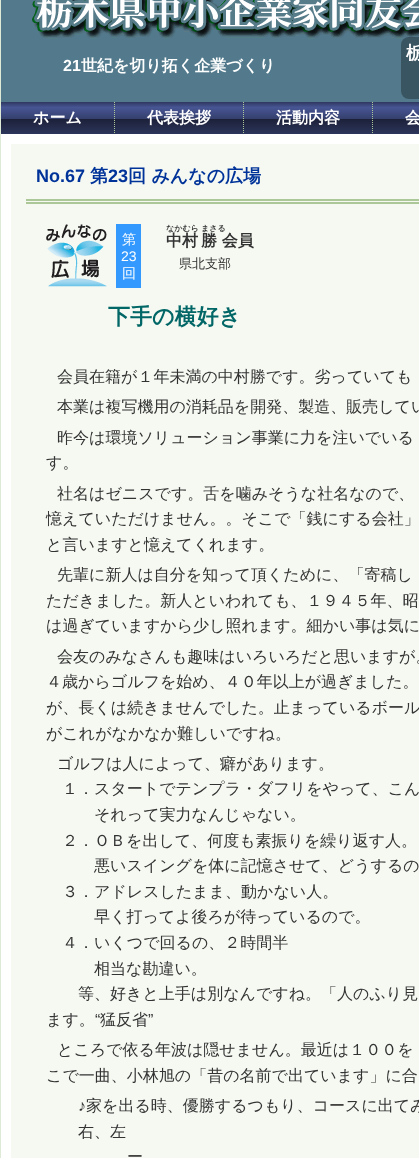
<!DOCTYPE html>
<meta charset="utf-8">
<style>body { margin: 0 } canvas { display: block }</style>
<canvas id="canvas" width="419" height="1158"></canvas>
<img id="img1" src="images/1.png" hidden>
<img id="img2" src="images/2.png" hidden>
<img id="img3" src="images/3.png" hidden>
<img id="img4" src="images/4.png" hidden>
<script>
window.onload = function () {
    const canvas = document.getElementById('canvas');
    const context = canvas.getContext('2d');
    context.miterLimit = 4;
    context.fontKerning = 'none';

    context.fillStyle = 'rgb(255, 255, 255)';
    context.fillRect(0, 0, 419, 1158);
    context.strokeStyle = 'rgb(222, 233, 214)';
    context.strokeRect(0.5, -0.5, 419, 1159);
    context.drawImage(document.getElementById('img1'), 1, 0, 418, 102);
    context.drawImage(document.getElementById('img2'), 34, 0, 385, 37);
    context.fillStyle = 'rgba(0, 0, 0, 0.3)';
    context.beginPath();
    context.roundRect(401, 37, 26, 62, 8);
    context.fill();
    context.drawImage(document.getElementById('img3'), 1, 102, 418, 32);
    context.beginPath();
    context.moveTo(114.5, 102);
    context.lineTo(114.5, 134);
    context.strokeStyle = 'rgb(172, 199, 152)';
    context.setLineDash([1, 1]);
    context.stroke();
    context.beginPath();
    context.moveTo(243.5, 102);
    context.lineTo(243.5, 134);
    context.stroke();
    context.beginPath();
    context.moveTo(372.5, 102);
    context.lineTo(372.5, 134);
    context.stroke();
    context.fillStyle = 'rgb(245, 249, 242)';
    context.fillRect(11, 144, 408, 1014);
    context.fillStyle = 'rgb(172, 199, 152)';
    context.fillRect(26, 199, 393, 2);
    context.fillRect(26, 202, 393, 2);
    context.drawImage(document.getElementById('img4'), 46, 224, 61, 63);
    context.fillStyle = 'rgb(51, 153, 255)';
    context.fillRect(116, 224, 25, 64);
    context.font = 'bold 18px WenQuanYi Zen Hei';
    context.fillStyle = 'rgb(255, 255, 255)';
    context.fillText('栃', 406, 59);
    context.font = 'bold 16px Liberation Sans';
    context.fillText('21', 63, 71);
    context.font = 'bold 16px WenQuanYi Zen Hei';
    context.fillText('世紀を切り拓く企業づくり', 81, 71);
    context.fillText('ホーム', 33, 123);
    context.fillText('代表挨拶', 147, 123);
    context.fillText('活動内容', 276, 123);
    context.fillText('会', 405, 123);
    context.font = 'bold 18px Liberation Sans';
    context.fillStyle = 'rgb(0, 51, 153)';
    context.fillText('No.67', 36, 182);
    context.font = 'bold 18px WenQuanYi Zen Hei';
    context.fillText('第', 90, 182);
    context.font = 'bold 18px Liberation Sans';
    context.fillText('23', 108, 182);
    context.font = 'bold 18px WenQuanYi Zen Hei';
    context.fillText('回 みんなの広場', 128, 182);
    context.font = '500 14px WenQuanYi Zen Hei';
    context.fillStyle = 'rgb(255, 255, 255)';
    context.fillText('第', 122, 244);
    context.font = '14px Liberation Sans';
    context.fillText('23', 121, 261);
    context.font = '500 14px WenQuanYi Zen Hei';
    context.fillText('回', 122, 278);
    context.font = 'bold 8px WenQuanYi Zen Hei';
    context.fillStyle = 'rgb(51, 51, 51)';
    context.fillText('なかむら', 166, 231);
    context.font = 'bold 16px WenQuanYi Zen Hei';
    context.fillText('中村', 166, 246);
    context.font = 'bold 8px WenQuanYi Zen Hei';
    context.fillText('まさる', 201, 231);
    context.font = 'bold 16px WenQuanYi Zen Hei';
    context.fillText('勝 会員', 201, 246);
    context.font = '500 13px WenQuanYi Zen Hei';
    context.fillText('県北支部', 179, 268);
    context.font = 'bold 22px WenQuanYi Zen Hei';
    context.fillStyle = 'rgb(0, 102, 102)';
    context.fillText('下手の横好き', 108, 324);
    context.font = '500 16px WenQuanYi Zen Hei';
    context.fillStyle = 'rgb(51, 51, 51)';
    context.fillText('会員在籍が１年未満の中村勝です。劣っていても', 57, 382);
    context.fillText('本業は複写機用の消耗品を開発、製造、販売してい', 57, 412);
    context.fillText('昨今は環境ソリューション事業に力を注いでいる', 57, 443);
    context.fillText('す。', 46, 468);
    context.fillText('社名はゼニスです。舌を噛みそうな社名なので、', 57, 499);
    context.fillText('憶えていただけません。。そこで「銭にする会社」', 46, 524);
    context.fillText('と言いますと憶えてくれます。', 46, 550);
    context.fillText('先輩に新人は自分を知って頂くために、「寄稿し', 57, 580);
    context.fillText('ただきました。新人といわれても、１９４５年、昭', 46, 606);
    context.fillText('は過ぎていますから少し照れます。細かい事は気に', 46, 631);
    context.fillText('会友のみなさんも趣味はいろいろだと思いますが。', 57, 662);
    context.fillText('４歳からゴルフを始め、４０年以上が過ぎました。', 46, 687);
    context.fillText('が、長くは続きませんでした。止まっているボール', 46, 713);
    context.fillText('がこれがなかなか難しいですね。', 46, 739);
    context.fillText('ゴルフは人によって、癖があります。', 57, 769);
    context.fillText('１．スタートでテンプラ・ダフリをやって、こん', 62, 794);
    context.fillText('それって実力なんじゃない。', 94, 820);
    context.fillText('２．ＯＢを出して、何度も素振りを繰り返す人。', 62, 846);
    context.fillText('悪いスイングを体に記憶させて、どうするの', 94, 871);
    context.fillText('３．アドレスしたまま、動かない人。', 62, 897);
    context.fillText('早く打ってよ後ろが待っているので。', 94, 922);
    context.fillText('４．いくつで回るの、２時間半', 62, 948);
    context.fillText('相当な勘違い。', 94, 974);
    context.fillText('等、好きと上手は別なんですね。「人のふり見', 78, 999);
    context.fillText('ます。', 46, 1025);
    context.font = '16px Liberation Sans';
    context.fillText('“', 95, 1025);
    context.font = '500 16px WenQuanYi Zen Hei';
    context.fillText('猛反省', 100, 1025);
    context.font = '16px Liberation Sans';
    context.fillText('”', 148, 1025);
    context.font = '500 16px WenQuanYi Zen Hei';
    context.fillText('ところで依る年波は隠せません。最近は１００を', 57, 1055);
    context.fillText('こで一曲、小林旭の「昔の名前で出ています」に合', 46, 1081);
    context.font = '16px Liberation Sans';
    context.fillText('♪', 78, 1111);
    context.font = '500 16px WenQuanYi Zen Hei';
    context.fillText('家を出る時、優勝するつもり、コースに出てみ', 86, 1111);
    context.fillText('右、左', 78, 1137);
    context.fillText('ー', 127, 1162);
};
</script>
